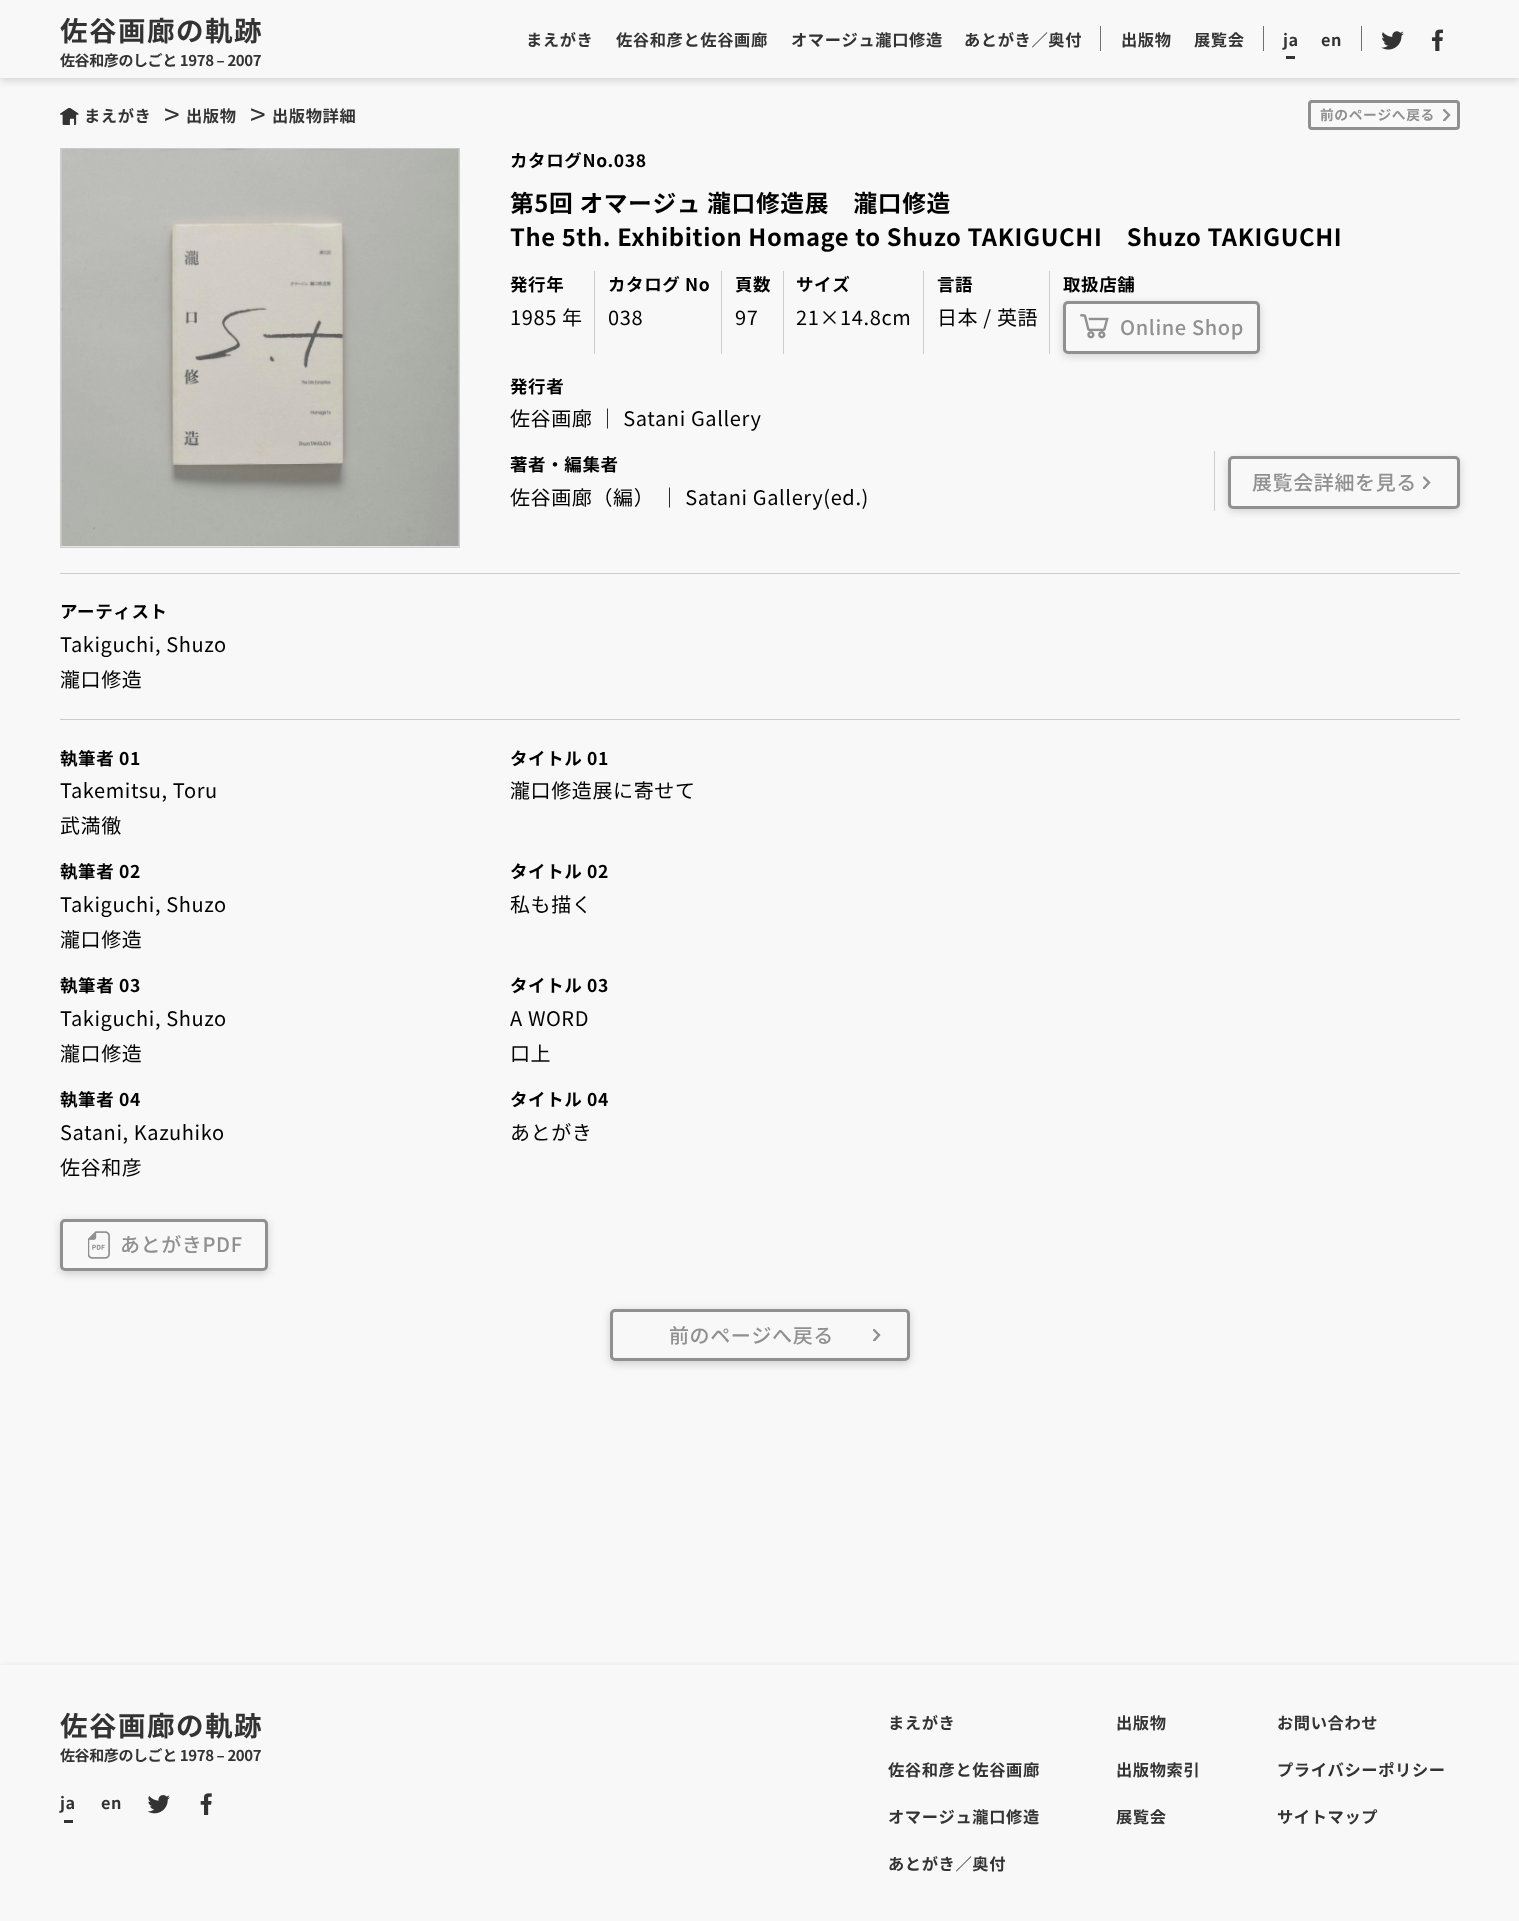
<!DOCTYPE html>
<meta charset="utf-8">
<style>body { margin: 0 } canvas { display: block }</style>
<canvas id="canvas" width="1519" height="1921"></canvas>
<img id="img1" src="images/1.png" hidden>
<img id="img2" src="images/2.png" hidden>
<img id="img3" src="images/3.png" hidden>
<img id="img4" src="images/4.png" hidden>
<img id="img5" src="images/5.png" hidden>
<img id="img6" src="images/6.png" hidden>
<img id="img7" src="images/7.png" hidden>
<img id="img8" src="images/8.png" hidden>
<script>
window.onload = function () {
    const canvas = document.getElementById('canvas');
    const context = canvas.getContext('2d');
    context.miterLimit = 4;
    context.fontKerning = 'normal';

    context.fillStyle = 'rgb(248, 248, 248)';
    context.fillRect(0, 0, 1519, 1921);
    context.fillStyle = 'rgba(0, 0, 0, 0.16)';
    context.filter = 'blur(4px)';
    context.beginPath();
    context.rect(0, 3, 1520, 77);
    context.fill();
    context.filter = 'none';
    context.fillStyle = 'rgb(248, 248, 248)';
    context.fillRect(0, 0, 1519, 78);
    context.fillStyle = 'rgb(112, 112, 112)';
    context.fillRect(1100, 26, 1, 25);
    context.fillRect(1263, 26, 1, 25);
    context.fillStyle = 'rgb(51, 51, 51)';
    context.fillRect(1286, 56, 9, 3);
    context.fillStyle = 'rgb(112, 112, 112)';
    context.fillRect(1361, 26, 1, 25);
    context.drawImage(document.getElementById('img1'), 1381, 31, 23, 19);
    context.drawImage(document.getElementById('img2'), 1431, 29, 12, 22);
    context.drawImage(document.getElementById('img3'), 60, 108, 19, 17);
    context.beginPath();
    context.roundRect(1309.5, 101.5, 149, 27, 2.5);
    context.strokeStyle = 'rgb(144, 144, 144)';
    context.lineWidth = 3;
    context.stroke();
    context.save();
    context.beginPath();
    context.rect(1443, 109, 8, 12);
    context.clip();
    context.beginPath();
    context.moveTo(1444, 110);
    context.lineTo(1449, 115);
    context.lineTo(1444, 120.5);
    context.lineWidth = 2.4;
    context.lineCap = 'round';
    context.stroke();
    context.restore();
    context.strokeStyle = 'rgb(204, 204, 204)';
    context.lineWidth = 1;
    context.strokeRect(60.5, 148.5, 399, 399);
    context.drawImage(document.getElementById('img4'), 61, 148, 398, 399);
    context.fillStyle = 'rgb(204, 204, 204)';
    context.fillRect(594, 271, 1, 83);
    context.fillRect(721, 271, 1, 83);
    context.fillRect(783, 271, 1, 83);
    context.fillRect(923, 271, 1, 83);
    context.fillRect(1049, 271, 1, 83);
    context.fillStyle = 'rgba(0, 0, 0, 0.16)';
    context.filter = 'blur(4px)';
    context.beginPath();
    context.roundRect(1063, 304, 197, 52, 5);
    context.fill();
    context.filter = 'none';
    context.fillStyle = 'rgb(248, 248, 248)';
    context.beginPath();
    context.roundRect(1064.5, 302.5, 194, 50, 3.5);
    context.fill();
    context.strokeStyle = 'rgb(144, 144, 144)';
    context.lineWidth = 3;
    context.stroke();
    context.drawImage(document.getElementById('img5'), 1080, 314, 29, 25);
    context.fillStyle = 'rgb(204, 204, 204)';
    context.fillRect(1214, 451, 1, 60);
    context.fillStyle = 'rgba(0, 0, 0, 0.16)';
    context.filter = 'blur(4px)';
    context.beginPath();
    context.roundRect(1228, 459, 232, 52, 5);
    context.fill();
    context.filter = 'none';
    context.fillStyle = 'rgb(248, 248, 248)';
    context.beginPath();
    context.roundRect(1229.5, 457.5, 229, 50, 3.5);
    context.fill();
    context.stroke();
    context.save();
    context.beginPath();
    context.rect(1423, 476, 8, 13);
    context.clip();
    context.beginPath();
    context.moveTo(1424, 477.5);
    context.lineTo(1429, 482.5);
    context.lineTo(1424, 488);
    context.lineWidth = 2.4;
    context.lineCap = 'round';
    context.stroke();
    context.restore();
    context.fillStyle = 'rgb(204, 204, 204)';
    context.fillRect(60, 573, 1400, 1);
    context.fillRect(60, 719, 1400, 1);
    context.fillStyle = 'rgba(0, 0, 0, 0.16)';
    context.filter = 'blur(4px)';
    context.beginPath();
    context.roundRect(60, 1221, 208, 53, 5);
    context.fill();
    context.filter = 'none';
    context.fillStyle = 'rgb(248, 248, 248)';
    context.beginPath();
    context.roundRect(61.5, 1220.5, 205, 49, 3.5);
    context.fill();
    context.stroke();
    context.drawImage(document.getElementById('img6'), 88, 1231, 22, 28);
    context.fillStyle = 'rgba(0, 0, 0, 0.16)';
    context.filter = 'blur(4px)';
    context.beginPath();
    context.roundRect(610, 1311, 300, 53, 5);
    context.fill();
    context.filter = 'none';
    context.fillStyle = 'rgb(248, 248, 248)';
    context.beginPath();
    context.roundRect(611.5, 1310.5, 297, 49, 3.5);
    context.fill();
    context.stroke();
    context.save();
    context.beginPath();
    context.rect(873, 1329, 8, 12);
    context.clip();
    context.beginPath();
    context.moveTo(874, 1330);
    context.lineTo(879, 1335);
    context.lineTo(874, 1340.5);
    context.lineWidth = 2.4;
    context.lineCap = 'round';
    context.stroke();
    context.restore();
    context.fillStyle = 'rgba(0, 0, 0, 0.16)';
    context.filter = 'blur(4px)';
    context.beginPath();
    context.rect(0, 1668, 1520, 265);
    context.fill();
    context.filter = 'none';
    context.fillStyle = 'rgb(248, 248, 248)';
    context.fillRect(0, 1665, 1519, 256);
    context.fillStyle = 'rgb(51, 51, 51)';
    context.fillRect(64, 1820, 9, 3);
    context.drawImage(document.getElementById('img7'), 148, 1795, 22, 19);
    context.drawImage(document.getElementById('img8'), 200, 1793, 12, 22);
    context.letterSpacing = '1.5px';
    context.font = 'bold 27.5px Noto Sans JP';
    context.fillText('佐谷画廊の軌跡', 60, 41);
    context.letterSpacing = '-0.4px';
    context.font = 'bold 15px Noto Sans JP';
    context.fillText('佐谷和彦のしごと 1978 – 2007', 60, 66);
    context.letterSpacing = '0.62px';
    context.font = 'bold 16.25px Noto Sans JP';
    context.fillText('まえがき', 526, 46);
    context.fillText('佐谷和彦と佐谷画廊', 616, 46);
    context.fillText('オマージュ瀧口修造', 791, 46);
    context.fillText('あとがき／奥付', 964, 46);
    context.fillText('出版物', 1121, 46);
    context.fillText('展覧会', 1194, 46);
    context.fillText('ja', 1283, 46);
    context.fillText('en', 1321, 46);
    context.fillText('まえがき', 84, 122);
    context.letterSpacing = '-10px';
    context.font = '28px Noto Sans JP';
    context.fillText('>', 164, 125);
    context.letterSpacing = '0.62px';
    context.font = 'bold 16.25px Noto Sans JP';
    context.fillText('出版物', 186, 122);
    context.letterSpacing = '-10px';
    context.font = '28px Noto Sans JP';
    context.fillText('>', 250, 125);
    context.letterSpacing = '0.62px';
    context.font = 'bold 16.25px Noto Sans JP';
    context.fillText('出版物詳細', 272, 122);
    context.font = 'bold 13.75px Noto Sans JP';
    context.fillStyle = 'rgb(144, 144, 144)';
    context.fillText('前のページへ戻る', 1320, 120);
    context.font = 'bold 17.5px Noto Sans JP';
    context.fillStyle = 'rgb(0, 0, 0)';
    context.fillText('カタログNo.038', 510, 167);
    context.font = 'bold 23.75px Noto Sans JP';
    context.fillText('第5回 オマージュ 瀧口修造展　瀧口修造', 510, 212);
    context.fillText('The 5th. Exhibition Homage to Shuzo TAKIGUCHI　Shuzo TAKIGUCHI', 510, 246);
    context.font = 'bold 17.5px Noto Sans JP';
    context.fillText('発行年', 510, 291);
    context.font = '20px Noto Sans JP';
    context.fillText('1985 年', 510, 325);
    context.font = 'bold 17.5px Noto Sans JP';
    context.fillText('カタログ No', 608, 291);
    context.font = '20px Noto Sans JP';
    context.fillText('038', 608, 325);
    context.font = 'bold 17.5px Noto Sans JP';
    context.fillText('頁数', 735, 291);
    context.font = '20px Noto Sans JP';
    context.fillText('97', 735, 325);
    context.font = 'bold 17.5px Noto Sans JP';
    context.fillText('サイズ', 796, 291);
    context.font = '20px Noto Sans JP';
    context.fillText('21×14.8cm', 796, 325);
    context.font = 'bold 17.5px Noto Sans JP';
    context.fillText('言語', 937, 291);
    context.font = '20px Noto Sans JP';
    context.fillText('日本 / 英語', 937, 325);
    context.font = 'bold 17.5px Noto Sans JP';
    context.fillText('取扱店舗', 1063, 291);
    context.font = '500 20px Noto Sans JP';
    context.fillStyle = 'rgb(144, 144, 144)';
    context.fillText('Online Shop', 1120, 335);
    context.font = 'bold 17.5px Noto Sans JP';
    context.fillStyle = 'rgb(0, 0, 0)';
    context.fillText('発行者', 510, 393);
    context.font = '20px Noto Sans JP';
    context.fillText('佐谷画廊 ｜ Satani Gallery', 510, 426);
    context.font = 'bold 17.5px Noto Sans JP';
    context.fillText('著者・編集者', 510, 471);
    context.font = '20px Noto Sans JP';
    context.fillText('佐谷画廊（編） ｜ Satani Gallery(ed.)', 510, 505);
    context.font = '500 20px Noto Sans JP';
    context.fillStyle = 'rgb(144, 144, 144)';
    context.fillText('展覧会詳細を見る', 1252, 490);
    context.font = 'bold 17.5px Noto Sans JP';
    context.fillStyle = 'rgb(0, 0, 0)';
    context.fillText('アーティスト', 60, 618);
    context.font = '20px Noto Sans JP';
    context.fillText('Takiguchi, Shuzo', 60, 652);
    context.fillText('瀧口修造', 60, 687);
    context.font = 'bold 17.5px Noto Sans JP';
    context.fillText('執筆者 01', 60, 765);
    context.font = '20px Noto Sans JP';
    context.fillText('Takemitsu, Toru', 60, 798);
    context.fillText('武満徹', 60, 833);
    context.font = 'bold 17.5px Noto Sans JP';
    context.fillText('タイトル 01', 510, 765);
    context.font = '20px Noto Sans JP';
    context.fillText('瀧口修造展に寄せて', 510, 798);
    context.font = 'bold 17.5px Noto Sans JP';
    context.fillText('執筆者 02', 60, 878);
    context.font = '20px Noto Sans JP';
    context.fillText('Takiguchi, Shuzo', 60, 912);
    context.fillText('瀧口修造', 60, 947);
    context.font = 'bold 17.5px Noto Sans JP';
    context.fillText('タイトル 02', 510, 878);
    context.font = '20px Noto Sans JP';
    context.fillText('私も描く', 510, 912);
    context.font = 'bold 17.5px Noto Sans JP';
    context.fillText('執筆者 03', 60, 992);
    context.font = '20px Noto Sans JP';
    context.fillText('Takiguchi, Shuzo', 60, 1026);
    context.fillText('瀧口修造', 60, 1061);
    context.font = 'bold 17.5px Noto Sans JP';
    context.fillText('タイトル 03', 510, 992);
    context.font = '20px Noto Sans JP';
    context.fillText('A WORD', 510, 1026);
    context.fillText('口上', 510, 1061);
    context.font = 'bold 17.5px Noto Sans JP';
    context.fillText('執筆者 04', 60, 1106);
    context.font = '20px Noto Sans JP';
    context.fillText('Satani, Kazuhiko', 60, 1140);
    context.fillText('佐谷和彦', 60, 1175);
    context.font = 'bold 17.5px Noto Sans JP';
    context.fillText('タイトル 04', 510, 1106);
    context.font = '20px Noto Sans JP';
    context.fillText('あとがき', 510, 1140);
    context.font = '500 20px Noto Sans JP';
    context.fillStyle = 'rgb(144, 144, 144)';
    context.fillText('あとがきPDF', 120, 1252);
    context.fillText('前のページへ戻る', 669, 1343);
    context.letterSpacing = '1.5px';
    context.font = 'bold 27.5px Noto Sans JP';
    context.fillStyle = 'rgb(51, 51, 51)';
    context.fillText('佐谷画廊の軌跡', 60, 1736);
    context.letterSpacing = '-0.4px';
    context.font = 'bold 15px Noto Sans JP';
    context.fillText('佐谷和彦のしごと 1978 – 2007', 60, 1761);
    context.letterSpacing = '0.62px';
    context.font = 'bold 16.25px Noto Sans JP';
    context.fillText('ja', 60, 1809);
    context.fillText('en', 101, 1809);
    context.fillText('まえがき', 888, 1729);
    context.fillText('出版物', 1116, 1729);
    context.fillText('お問い合わせ', 1277, 1729);
    context.fillText('佐谷和彦と佐谷画廊', 888, 1776);
    context.fillText('出版物索引', 1116, 1776);
    context.fillText('プライバシーポリシー', 1277, 1776);
    context.fillText('オマージュ瀧口修造', 888, 1823);
    context.fillText('展覧会', 1116, 1823);
    context.fillText('サイトマップ', 1277, 1823);
    context.fillText('あとがき／奥付', 888, 1870);
};
</script>
